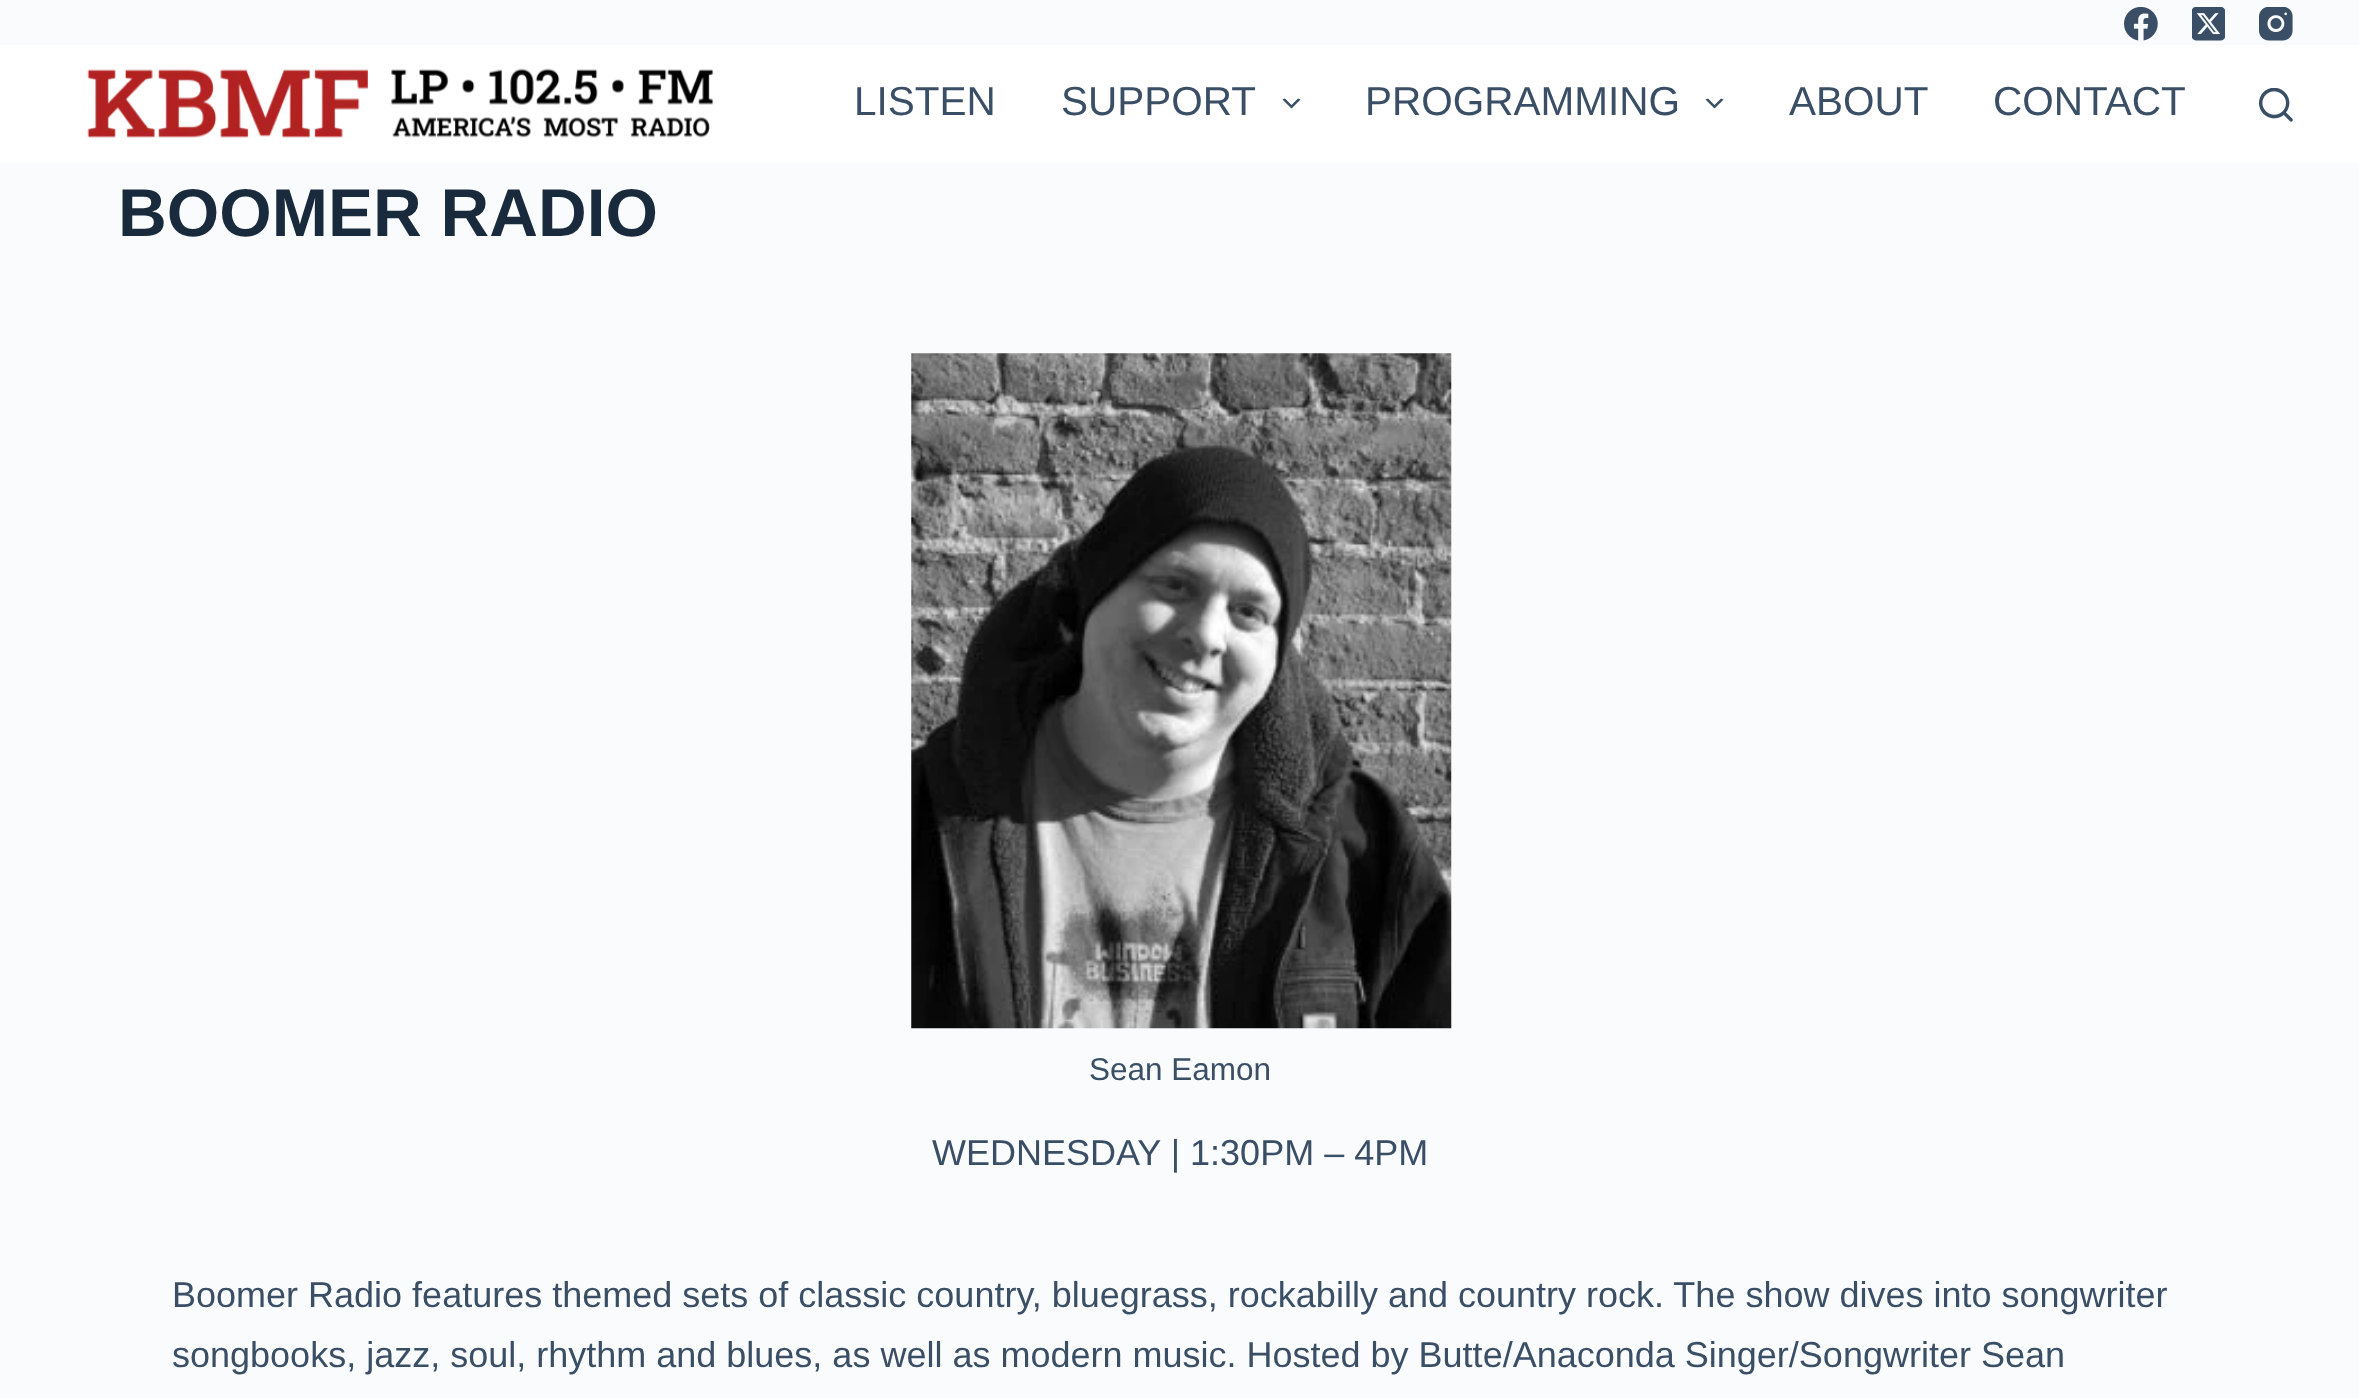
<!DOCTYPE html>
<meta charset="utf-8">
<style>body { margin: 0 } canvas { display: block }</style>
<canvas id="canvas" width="2359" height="1398"></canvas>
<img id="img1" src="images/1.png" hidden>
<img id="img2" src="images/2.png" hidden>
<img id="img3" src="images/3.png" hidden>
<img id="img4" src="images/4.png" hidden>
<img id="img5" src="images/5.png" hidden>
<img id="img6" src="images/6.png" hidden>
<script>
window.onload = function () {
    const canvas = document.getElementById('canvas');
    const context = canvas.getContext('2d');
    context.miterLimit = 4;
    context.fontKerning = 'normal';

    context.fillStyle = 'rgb(250, 251, 252)';
    context.fillRect(0, 0, 2359, 1398);
    context.drawImage(document.getElementById('img1'), 2124, 7, 34, 34);
    context.drawImage(document.getElementById('img2'), 2192, 7, 33, 34);
    context.drawImage(document.getElementById('img3'), 2259, 7, 34, 34);
    context.fillStyle = 'rgb(255, 255, 255)';
    context.fillRect(0, 45, 2359, 117);
    context.drawImage(document.getElementById('img4'), 87, 68, 627, 70);
    context.fillStyle = 'rgb(58, 79, 102)';
    context.beginPath();
    context.moveTo(1285, 98.5);
    context.lineTo(1291.5, 105);
    context.lineTo(1298, 98.5);
    context.lineTo(1300.5, 99.5);
    context.lineTo(1291.5, 108.5);
    context.lineTo(1282.5, 99.5);
    context.closePath();
    context.fill();
    context.beginPath();
    context.moveTo(1708, 98.5);
    context.lineTo(1714.5, 105);
    context.lineTo(1721, 98.5);
    context.lineTo(1723.5, 99.5);
    context.lineTo(1714.5, 108.5);
    context.lineTo(1705.5, 99.5);
    context.closePath();
    context.fill();
    context.drawImage(document.getElementById('img5'), 2259, 88, 34, 34);
    context.drawImage(document.getElementById('img6'), 911, 353, 541, 676);
    context.font = '40.5px Liberation Sans';
    context.fillText('LISTEN', 854, 115);
    context.fillText('SUPPORT', 1061, 115);
    context.fillText('PROGRAMMING', 1365, 115);
    context.fillText('ABOUT', 1789, 115);
    context.fillText('CONTACT', 1993, 115);
    context.font = 'bold 67.5px Liberation Sans';
    context.fillStyle = 'rgb(25, 42, 61)';
    context.fillText('BOOMER RADIO', 118, 236);
    context.font = '31.5px Liberation Sans';
    context.fillStyle = 'rgb(58, 79, 102)';
    context.fillText('Sean Eamon', 1089, 1080);
    context.font = '36px Liberation Sans';
    context.fillText('WEDNESDAY | 1:30PM – 4PM', 932, 1165);
    context.fillText('Boomer Radio features themed sets of classic country, bluegrass, rockabilly and country rock. The show dives into songwriter', 172, 1307);
    context.fillText('songbooks, jazz, soul, rhythm and blues, as well as modern music. Hosted by Butte/Anaconda Singer/Songwriter Sean', 172, 1367);
};
</script>
